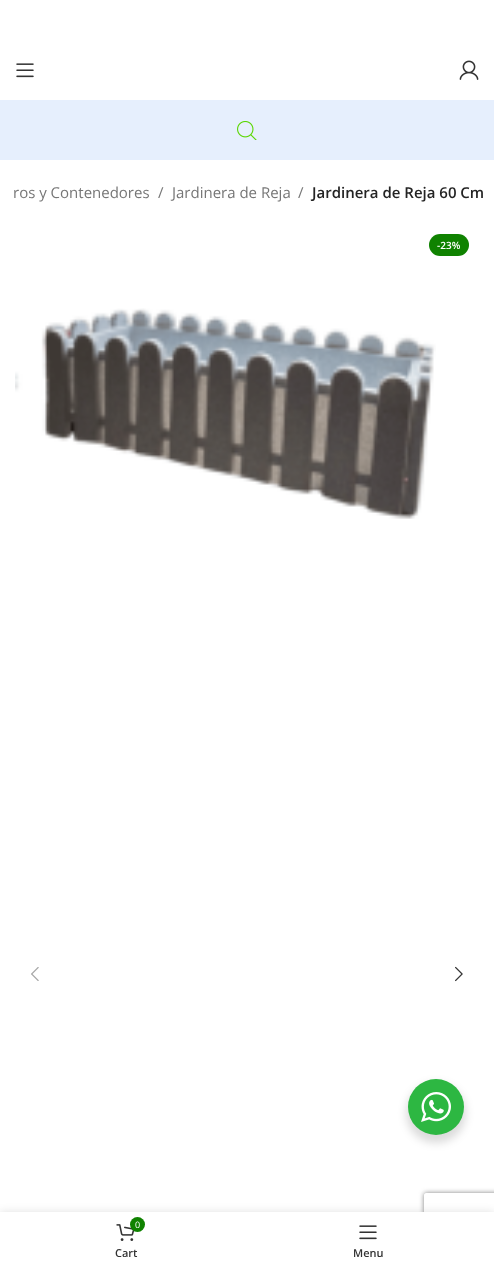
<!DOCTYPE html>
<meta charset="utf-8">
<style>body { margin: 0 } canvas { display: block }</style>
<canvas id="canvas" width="494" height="1267"></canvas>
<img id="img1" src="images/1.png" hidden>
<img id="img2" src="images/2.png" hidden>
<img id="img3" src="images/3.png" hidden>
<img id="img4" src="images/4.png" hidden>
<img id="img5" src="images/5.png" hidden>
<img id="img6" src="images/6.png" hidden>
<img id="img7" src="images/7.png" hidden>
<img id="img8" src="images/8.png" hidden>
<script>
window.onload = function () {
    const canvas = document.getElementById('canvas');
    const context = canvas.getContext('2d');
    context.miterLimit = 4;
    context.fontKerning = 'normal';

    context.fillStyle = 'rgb(255, 255, 255)';
    context.fillRect(0, 0, 494, 1267);
    context.drawImage(document.getElementById('img1'), 16, 63, 18, 15);
    context.drawImage(document.getElementById('img2'), 459, 60, 20, 20);
    context.fillStyle = 'rgb(230, 239, 253)';
    context.fillRect(0, 100, 494, 60);
    context.drawImage(document.getElementById('img3'), 237, 121, 20, 19);
    context.fillStyle = 'rgb(15, 130, 0)';
    context.beginPath();
    context.roundRect(429, 234, 40, 22, 11);
    context.fill();
    context.drawImage(document.getElementById('img4'), 15, 308, 421, 211);
    context.drawImage(document.getElementById('img5'), 31, 967, 8, 14);
    context.drawImage(document.getElementById('img6'), 455, 966, 8, 16);
    context.fillStyle = 'rgba(0, 0, 0, 0.14)';
    context.filter = 'blur(4px)';
    context.beginPath();
    context.roundRect(406, 1083, 60, 60, 30);
    context.fill();
    context.filter = 'none';
    context.fillStyle = 'rgb(45, 183, 66)';
    context.beginPath();
    context.arc(436, 1107, 28, 0, 2 * Math.PI);
    context.fill();
    context.drawImage(document.getElementById('img7'), 421, 1092, 30, 30);
    context.fillStyle = 'rgba(0, 0, 0, 0.12)';
    context.filter = 'blur(4.5px)';
    context.beginPath();
    context.rect(0, 1212, 494, 55);
    context.fill();
    context.filter = 'none';
    context.save();
    context.beginPath();
    context.moveTo(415, 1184);
    context.lineTo(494, 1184);
    context.lineTo(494, 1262);
    context.lineTo(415, 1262);
    context.closePath();
    context.moveTo(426, 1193);
    context.lineTo(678, 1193);
    context.bezierCurveTo(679, 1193, 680, 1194, 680, 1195);
    context.lineTo(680, 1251);
    context.bezierCurveTo(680, 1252, 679, 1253, 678, 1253);
    context.lineTo(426, 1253);
    context.bezierCurveTo(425, 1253, 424, 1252, 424, 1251);
    context.lineTo(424, 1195);
    context.bezierCurveTo(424, 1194, 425, 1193, 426, 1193);
    context.closePath();
    context.clip('evenodd');
    context.fillStyle = 'rgb(128, 128, 128)';
    context.filter = 'blur(2.5px)';
    context.beginPath();
    context.roundRect(424, 1193, 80, 60, 2);
    context.fill();
    context.filter = 'none';
    context.restore();
    context.fillStyle = 'rgb(255, 255, 255)';
    context.fillRect(0, 1212, 494, 55);
    context.drawImage(document.getElementById('img8'), 116, 1224, 19, 17);
    context.fillStyle = 'rgb(15, 130, 0)';
    context.beginPath();
    context.arc(137.5, 1224.5, 7.5, 0, 2 * Math.PI);
    context.fill();
    context.drawImage(document.getElementById('img1'), 359, 1225, 18, 15);
    context.font = '15px Open Sans';
    context.fillStyle = 'rgb(118, 118, 118)';
    context.fillText('ros y Contenedores', 13, 198);
    context.fillText('/', 158, 198);
    context.fillText('Jardinera de Reja', 172, 198);
    context.fillText('/', 298, 198);
    context.font = '600 15px Open Sans';
    context.fillStyle = 'rgb(36, 36, 36)';
    context.fillText('Jardinera de Reja 60 Cm', 312, 198);
    context.font = '600 10px Open Sans';
    context.fillStyle = 'rgb(255, 255, 255)';
    context.fillText('-23%', 437, 249);
    context.font = '9px Open Sans';
    context.fillText('0', 135, 1228);
    context.font = '600 11px Open Sans';
    context.fillStyle = 'rgb(51, 51, 51)';
    context.fillText('Cart', 115, 1257);
    context.fillText('Menu', 353, 1257);
};
</script>
